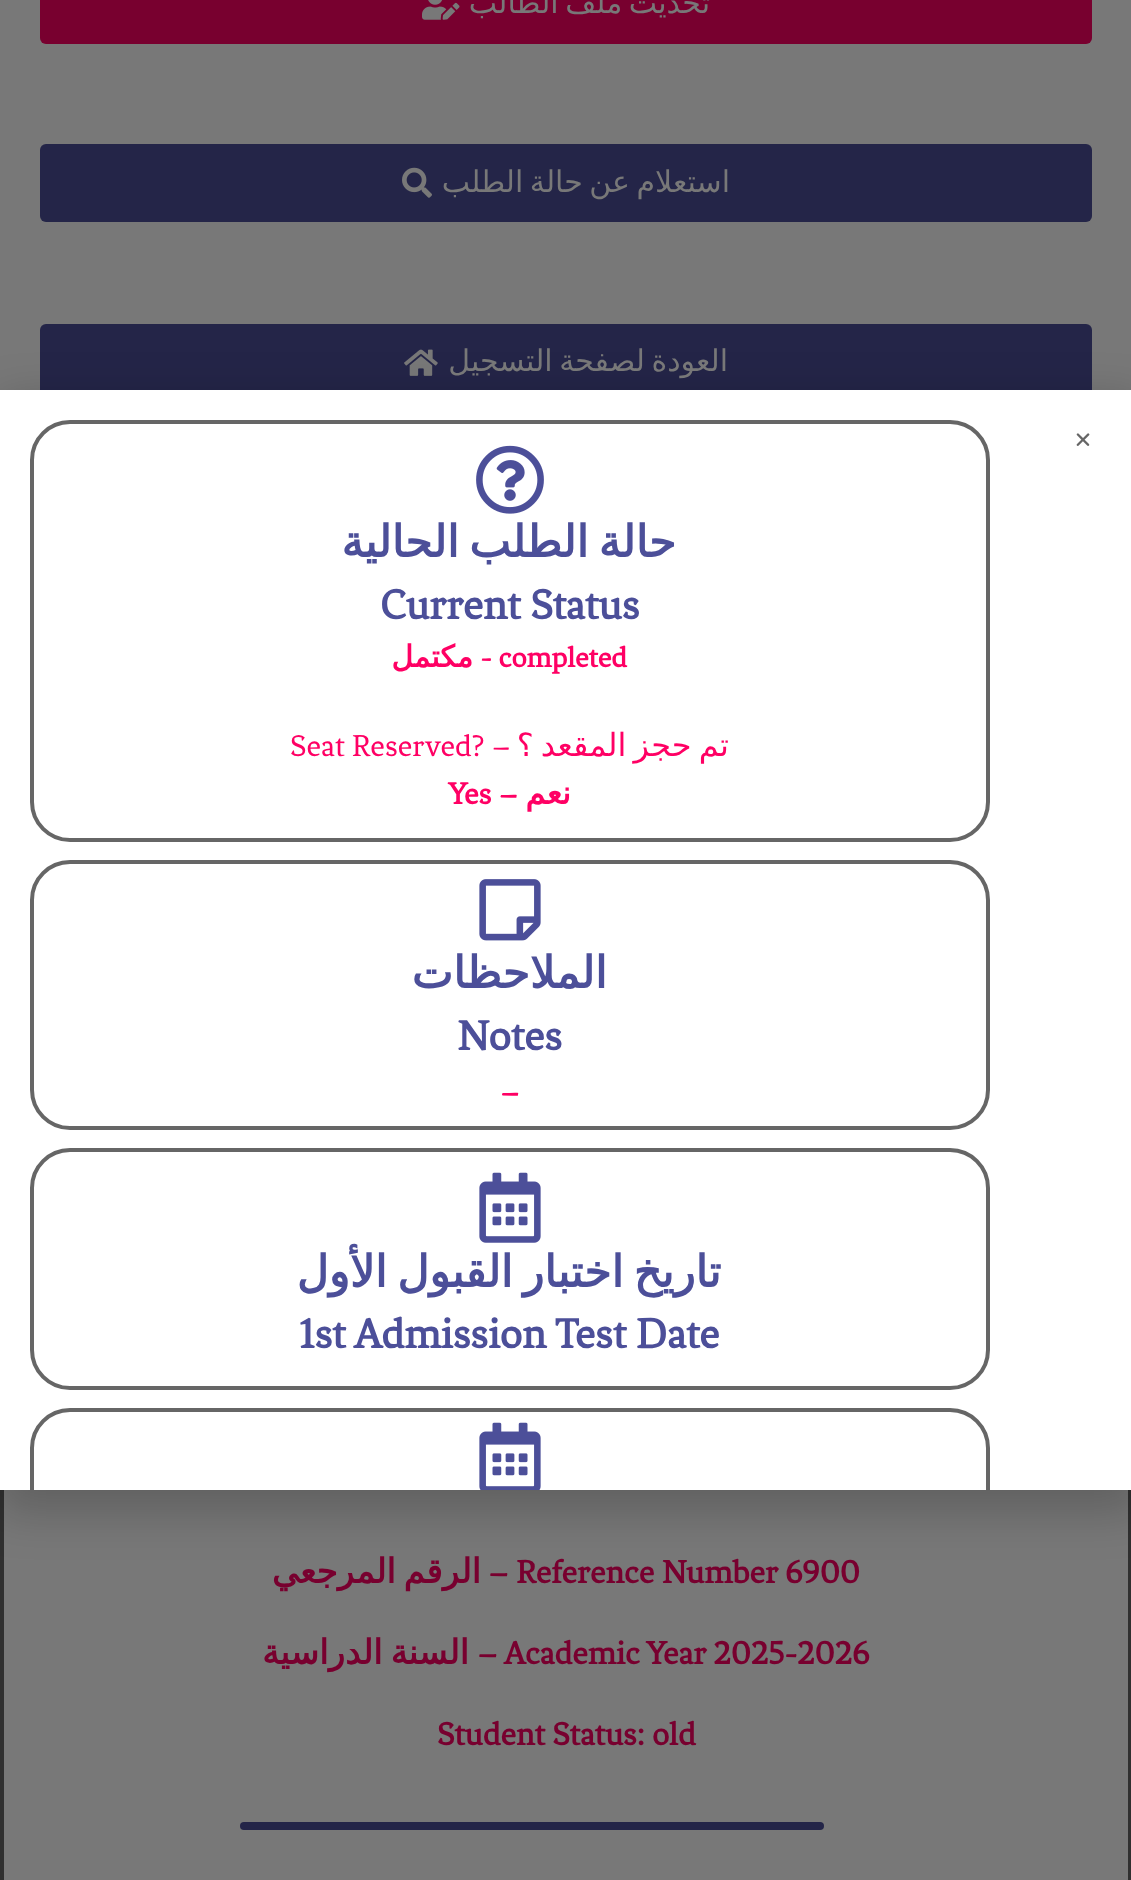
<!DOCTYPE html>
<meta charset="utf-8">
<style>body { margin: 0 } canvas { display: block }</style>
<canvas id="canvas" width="1131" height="1880"></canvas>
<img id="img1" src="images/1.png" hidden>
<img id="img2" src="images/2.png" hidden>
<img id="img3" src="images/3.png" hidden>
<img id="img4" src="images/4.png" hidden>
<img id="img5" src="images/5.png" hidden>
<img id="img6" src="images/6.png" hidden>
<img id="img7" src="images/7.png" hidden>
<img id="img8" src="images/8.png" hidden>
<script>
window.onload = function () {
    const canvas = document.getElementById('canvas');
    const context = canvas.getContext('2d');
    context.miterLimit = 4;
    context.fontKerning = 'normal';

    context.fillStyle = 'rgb(120, 120, 120)';
    context.fillRect(0, 0, 1131, 1880);
    context.fillStyle = 'rgb(120, 0, 47)';
    context.beginPath();
    context.roundRect(40, -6, 1052, 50, 6);
    context.fill();
    context.drawImage(document.getElementById('img1'), 422, 0, 38, 20);
    context.fillStyle = 'rgb(36, 37, 72)';
    context.beginPath();
    context.roundRect(40, 144, 1052, 78, 6);
    context.fill();
    context.drawImage(document.getElementById('img2'), 402, 167, 30, 31);
    context.beginPath();
    context.roundRect(40, 324, 1052, 78, 6);
    context.fill();
    context.drawImage(document.getElementById('img3'), 404, 349, 34, 27);
    context.strokeStyle = 'rgb(48, 48, 48)';
    context.lineWidth = 4;
    context.strokeRect(2, 454, 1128, 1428);
    context.beginPath();
    context.roundRect(240, 1822, 584, 8, 4);
    context.fill();
    context.fillStyle = 'rgba(0, 0, 0, 0.2)';
    context.filter = 'blur(23px)';
    context.beginPath();
    context.rect(-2, 400, 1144, 1112);
    context.fill();
    context.filter = 'none';
    context.fillStyle = 'rgb(255, 255, 255)';
    context.fillRect(0, 390, 1131, 1100);
    context.drawImage(document.getElementById('img4'), 1076, 433, 14, 13);
    context.beginPath();
    context.roundRect(32, 422, 956, 418, 38);
    context.strokeStyle = 'rgb(102, 102, 102)';
    context.stroke();
    context.drawImage(document.getElementById('img5'), 476, 445, 68, 69);
    context.beginPath();
    context.roundRect(32, 862, 956, 266, 38);
    context.stroke();
    context.drawImage(document.getElementById('img6'), 479, 879, 62, 62);
    context.beginPath();
    context.roundRect(32, 1150, 956, 238, 38);
    context.stroke();
    context.drawImage(document.getElementById('img7'), 479, 1172, 62, 71);
    context.wordSpacing = '-3px';
    context.direction = 'rtl';
    context.font = '30px DejaVu Sans';
    context.fillStyle = 'rgb(120, 120, 120)';
    context.fillText('تحديث ملف الطالب', 710, 13);
    context.fillText('استعلام عن حالة الطلب', 730, 192);
    context.fillText('العودة لصفحة التسجيل', 728, 371);
    context.wordSpacing = '0px';
    context.direction = 'ltr';
    context.font = 'bold 34px Fenix';
    context.fillStyle = 'rgb(120, 0, 47)';
    context.fillText('– Reference Number 6900', 488, 1583);
    context.wordSpacing = '-3px';
    context.direction = 'rtl';
    context.font = 'bold 34px DejaVu Sans';
    context.fillText('الرقم المرجعي', 481, 1583);
    context.wordSpacing = '0px';
    context.direction = 'ltr';
    context.font = 'bold 34px Fenix';
    context.fillText('– Academic Year 2025-2026', 477, 1664);
    context.wordSpacing = '-3px';
    context.direction = 'rtl';
    context.font = 'bold 34px DejaVu Sans';
    context.fillText('السنة الدراسية', 469, 1664);
    context.wordSpacing = '0px';
    context.direction = 'ltr';
    context.font = 'bold 34px Fenix';
    context.fillText('Student Status: old', 437, 1745);
    context.wordSpacing = '-4px';
    context.direction = 'rtl';
    context.font = 'bold 44px DejaVu Sans';
    context.fillStyle = 'rgb(76, 79, 153)';
    context.fillText('حالة الطلب الحالية', 676, 557);
    context.wordSpacing = '0px';
    context.direction = 'ltr';
    context.font = 'bold 44px Fenix';
    context.fillText('Current Status', 380, 619);
    context.font = 'bold 30px Fenix';
    context.fillStyle = 'rgb(255, 0, 100)';
    context.fillText('- completed', 480, 667);
    context.direction = 'rtl';
    context.font = 'bold 30px DejaVu Sans';
    context.fillText('مكتمل', 473, 667);
    context.wordSpacing = '-3px';
    context.font = '32px DejaVu Sans';
    context.fillText('تم حجز المقعد ؟', 729, 756);
    context.wordSpacing = '0px';
    context.direction = 'ltr';
    context.font = '32px Fenix';
    context.fillText('Seat Reserved? –', 290, 756);
    context.direction = 'rtl';
    context.font = 'bold 32px DejaVu Sans';
    context.fillText('نعم', 571, 804);
    context.direction = 'ltr';
    context.font = 'bold 32px Fenix';
    context.fillText('Yes –', 448, 804);
    context.direction = 'rtl';
    context.font = 'bold 44px DejaVu Sans';
    context.fillStyle = 'rgb(76, 79, 153)';
    context.fillText('الملاحظات', 607, 988);
    context.direction = 'ltr';
    context.font = 'bold 44px Fenix';
    context.fillText('Notes', 457, 1050);
    context.font = 'bold 32px Fenix';
    context.fillStyle = 'rgb(255, 0, 100)';
    context.fillText('–', 500, 1102);
    context.wordSpacing = '-4px';
    context.direction = 'rtl';
    context.font = 'bold 44px DejaVu Sans';
    context.fillStyle = 'rgb(76, 79, 153)';
    context.fillText('تاريخ اختبار القبول الأول', 721, 1287);
    context.wordSpacing = '0px';
    context.direction = 'ltr';
    context.font = 'bold 44px Fenix';
    context.fillText('1st Admission Test Date', 299, 1348);
    context.save();
    context.beginPath();
    context.rect(0, 390, 1018, 1100);
    context.clip();
    context.beginPath();
    context.roundRect(32, 1410, 956, 262, 38);
    context.stroke();
    context.restore();
    context.drawImage(document.getElementById('img8'), 479, 1422, 62, 68);
};
</script>
